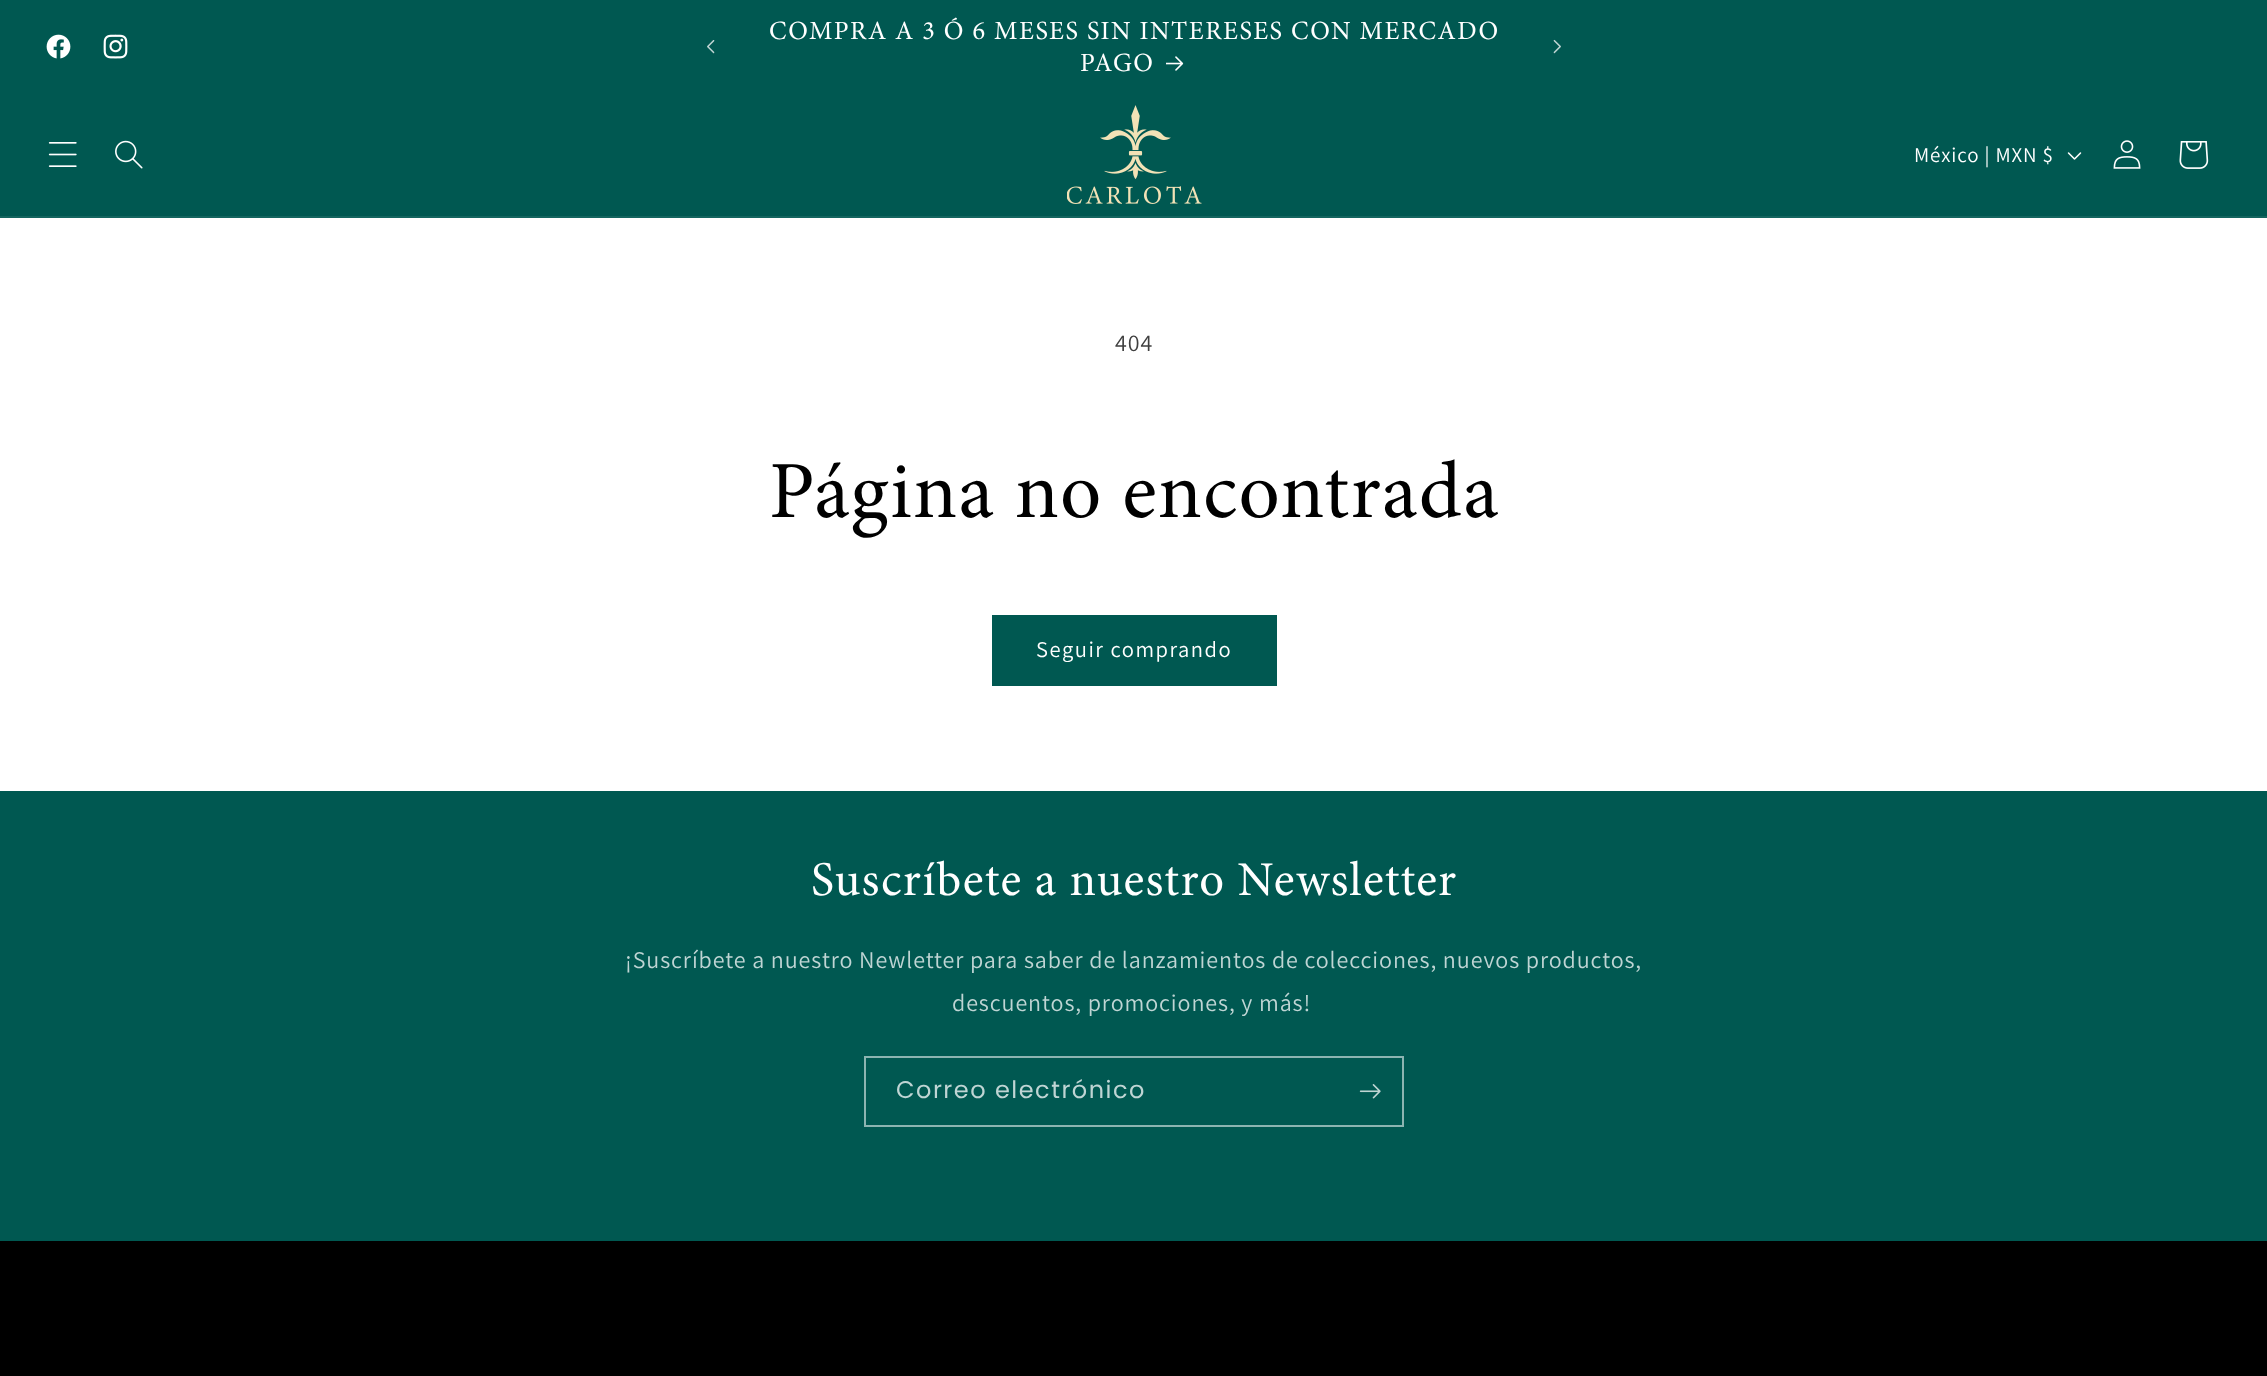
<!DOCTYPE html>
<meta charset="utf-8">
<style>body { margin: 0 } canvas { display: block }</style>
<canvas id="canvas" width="2267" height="1376"></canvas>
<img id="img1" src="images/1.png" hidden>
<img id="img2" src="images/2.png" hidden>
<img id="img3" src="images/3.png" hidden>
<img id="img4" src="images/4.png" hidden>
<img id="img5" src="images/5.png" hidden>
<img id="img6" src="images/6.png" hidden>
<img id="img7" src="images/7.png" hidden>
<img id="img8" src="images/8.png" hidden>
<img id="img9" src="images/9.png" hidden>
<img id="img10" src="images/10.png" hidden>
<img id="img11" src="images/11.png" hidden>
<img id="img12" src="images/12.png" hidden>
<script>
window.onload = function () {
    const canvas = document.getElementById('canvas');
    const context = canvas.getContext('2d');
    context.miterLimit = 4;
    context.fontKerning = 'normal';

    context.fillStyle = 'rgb(255, 255, 255)';
    context.fillRect(0, 0, 2267, 1376);
    context.fillStyle = 'rgb(0, 88, 81)';
    context.fillRect(0, 0, 2267, 216);
    context.drawImage(document.getElementById('img1'), 46, 34, 25, 25);
    context.drawImage(document.getElementById('img2'), 103, 34, 25, 25);
    context.drawImage(document.getElementById('img3'), 707, 40, 8, 14);
    context.drawImage(document.getElementById('img4'), 1166, 56, 18, 15);
    context.drawImage(document.getElementById('img5'), 1553, 39, 8, 15);
    context.fillStyle = 'rgb(20, 101, 95)';
    context.fillRect(0, 216, 2267, 2);
    context.drawImage(document.getElementById('img6'), 48, 142, 29, 25);
    context.drawImage(document.getElementById('img7'), 115, 140, 28, 29);
    context.drawImage(document.getElementById('img8'), 1067, 105, 135, 99);
    context.drawImage(document.getElementById('img9'), 2067, 152, 15, 8);
    context.drawImage(document.getElementById('img10'), 2113, 140, 28, 29);
    context.drawImage(document.getElementById('img11'), 2179, 141, 30, 28);
    context.fillStyle = 'rgb(0, 88, 81)';
    context.fillRect(992, 615, 285, 71);
    context.fillRect(0, 791, 2267, 450);
    context.strokeStyle = 'rgb(140, 180, 177)';
    context.lineWidth = 2;
    context.strokeRect(865, 1057, 538, 69);
    context.drawImage(document.getElementById('img12'), 1359, 1084, 22, 15);
    context.fillStyle = 'rgb(0, 0, 0)';
    context.fillRect(0, 1241, 2267, 135);
    context.letterSpacing = '1.5px';
    context.font = '26.3px Minion';
    context.fillStyle = 'rgb(255, 255, 255)';
    context.fillText('COMPRA A 3 Ó 6 MESES SIN INTERESES CON MERCADO', 769, 39);
    context.fillText('PAGO', 1080, 71);
    context.letterSpacing = '0.9px';
    context.font = '21px Assistant';
    context.fillText('México | MXN $', 1914, 162);
    context.font = '24px Assistant';
    context.fillStyle = 'rgb(64, 64, 64)';
    context.fillText('404', 1115, 351);
    context.letterSpacing = '1.25px';
    context.font = '81px Minion';
    context.fillStyle = 'rgb(0, 0, 0)';
    context.fillText('Página no encontrada', 769, 517);
    context.letterSpacing = '1.5px';
    context.font = '22.5px Assistant';
    context.fillStyle = 'rgb(255, 255, 255)';
    context.fillText('Seguir comprando', 1036, 657);
    context.letterSpacing = '1.25px';
    context.font = '48.6px Minion';
    context.fillText('Suscríbete a nuestro Newsletter', 811, 895);
    context.letterSpacing = '0.9px';
    context.font = '24px Assistant';
    context.fillStyle = 'rgb(191, 213, 212)';
    context.fillText('¡Suscríbete a nuestro Newletter para saber de lanzamientos de colecciones, nuevos productos,', 625, 968);
    context.fillText('descuentos, promociones, y más!', 952, 1011);
    context.letterSpacing = '1.5px';
    context.font = '24px Poppins';
    context.fillText('Correo electrónico', 896, 1098);
};
</script>
